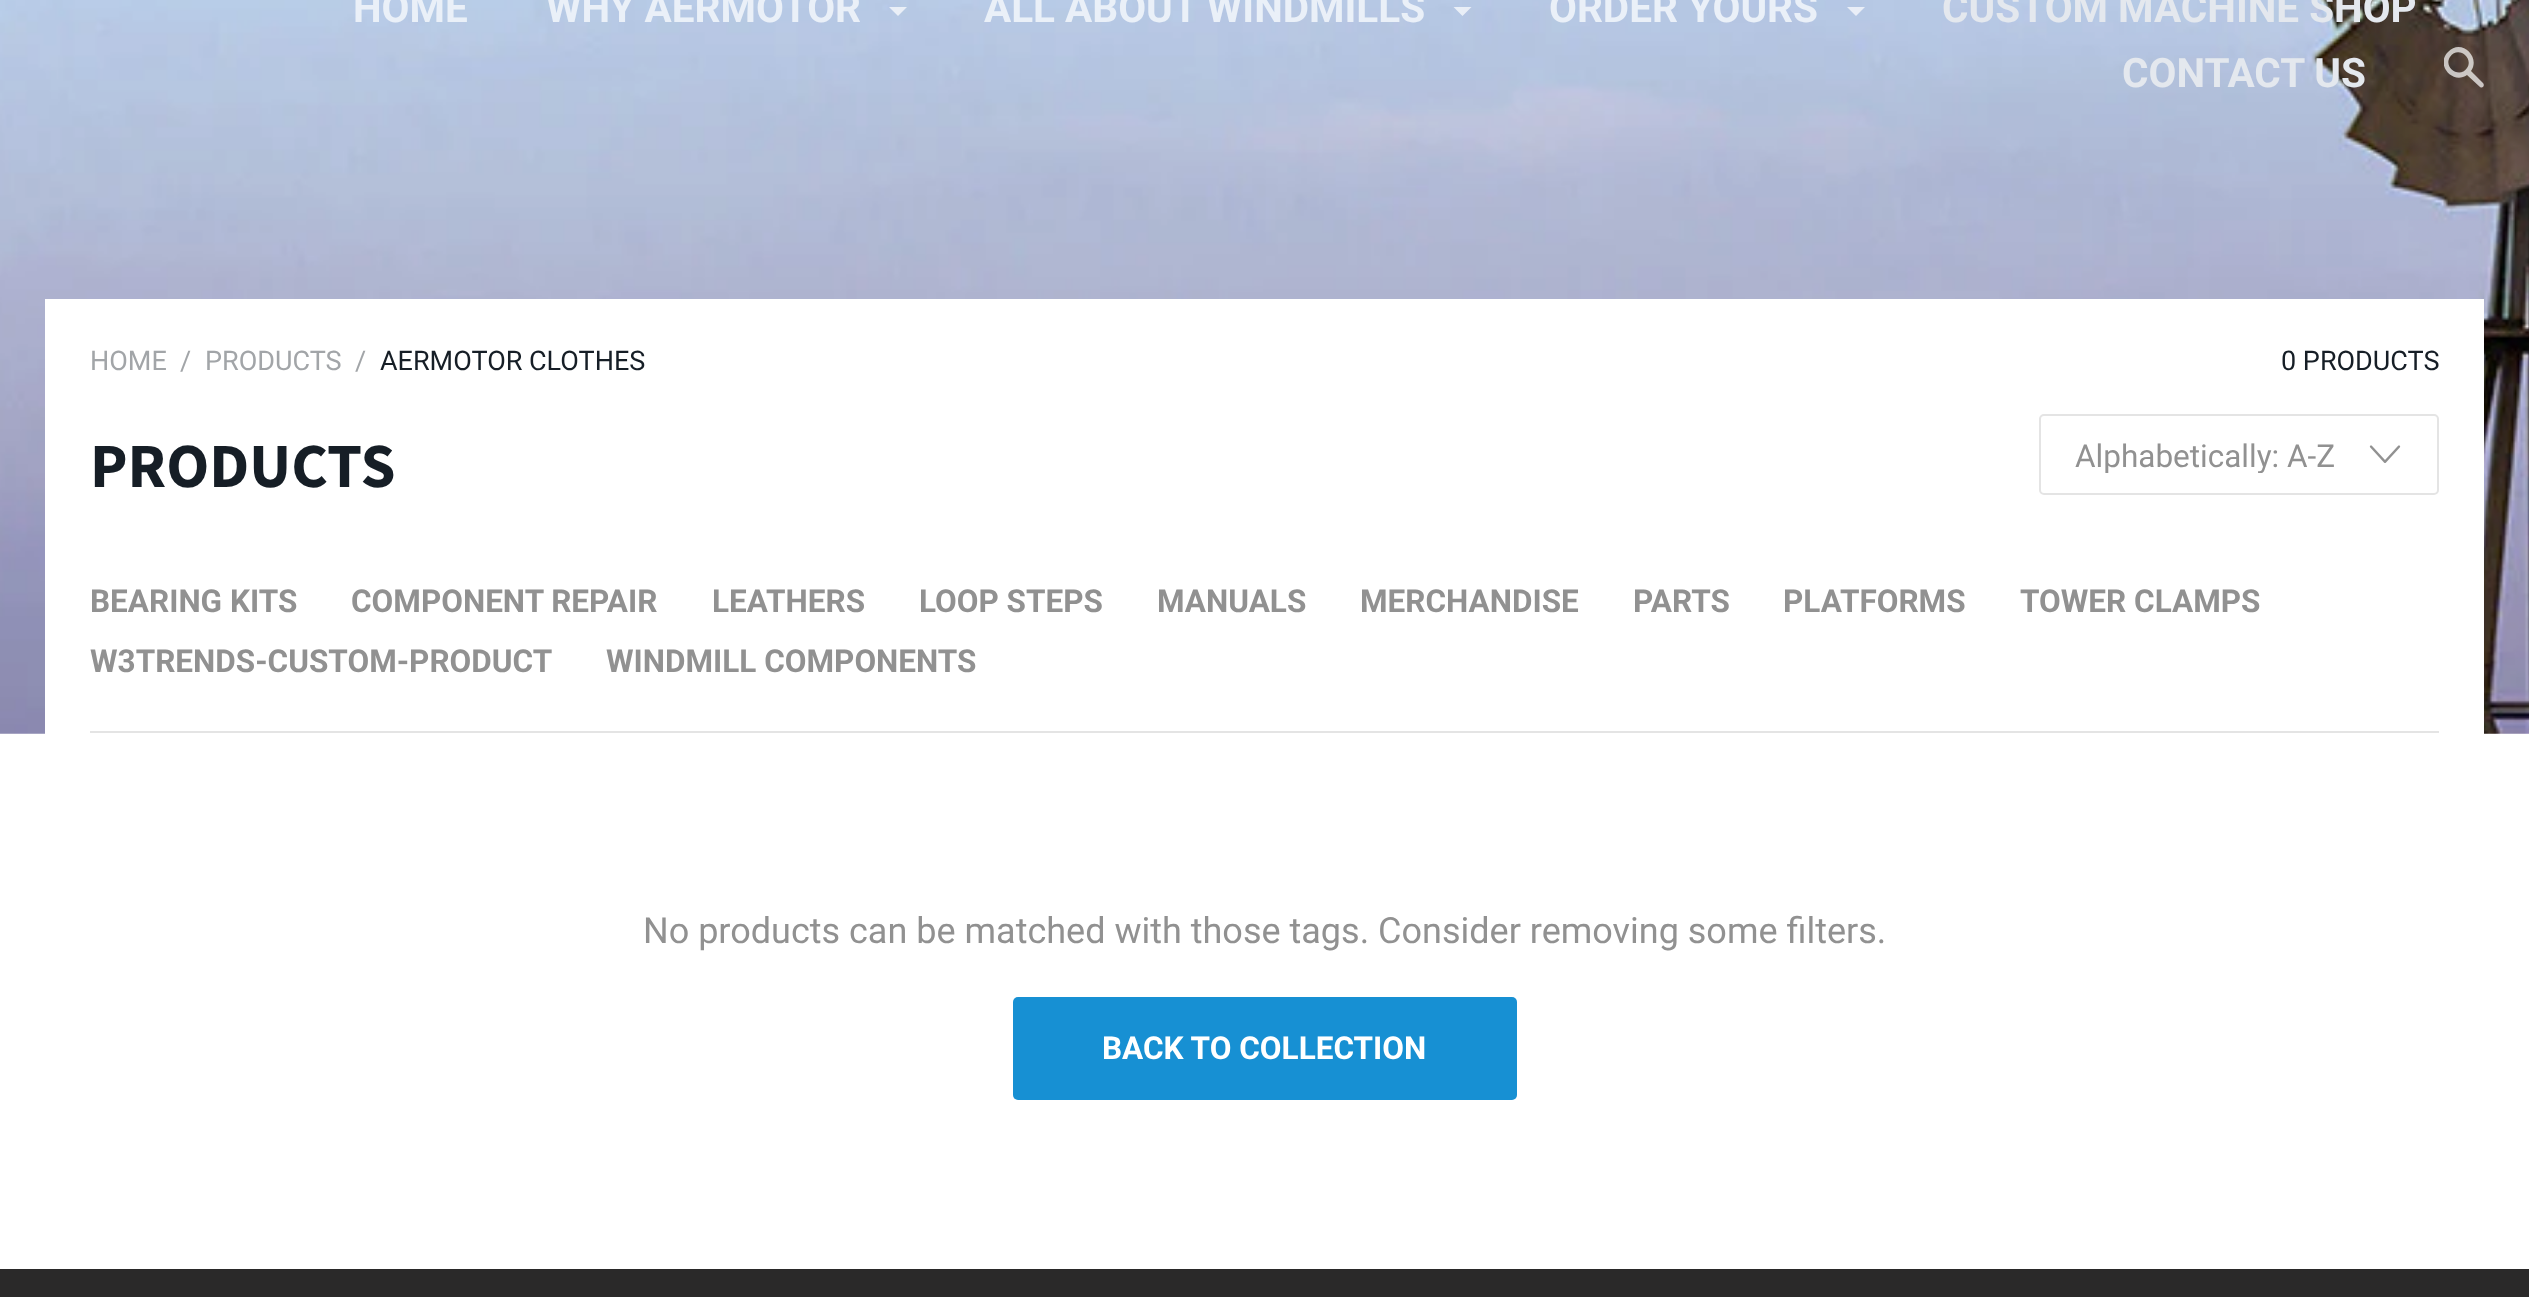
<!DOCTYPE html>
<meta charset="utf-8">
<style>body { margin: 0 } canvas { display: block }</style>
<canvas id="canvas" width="2529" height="1297"></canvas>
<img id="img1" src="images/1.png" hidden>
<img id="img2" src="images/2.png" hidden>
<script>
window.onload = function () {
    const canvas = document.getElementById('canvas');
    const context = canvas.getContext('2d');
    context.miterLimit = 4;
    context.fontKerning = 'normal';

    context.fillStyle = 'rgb(255, 255, 255)';
    context.fillRect(0, 0, 2529, 1297);
    context.drawImage(document.getElementById('img1'), 0, 0, 2529, 734);
    context.fillStyle = 'rgba(255, 255, 255, 0.7)';
    context.beginPath();
    context.moveTo(889, 7);
    context.lineTo(907, 7);
    context.lineTo(898, 16);
    context.closePath();
    context.fill();
    context.beginPath();
    context.moveTo(1453.5, 7);
    context.lineTo(1471.5, 7);
    context.lineTo(1462.5, 16);
    context.closePath();
    context.fill();
    context.fillStyle = 'rgb(233, 238, 247)';
    context.beginPath();
    context.moveTo(1847, 7);
    context.lineTo(1865, 7);
    context.lineTo(1856, 16);
    context.closePath();
    context.fill();
    context.save();
    context.beginPath();
    context.rect(2444, 47, 40, 41);
    context.clip();
    context.fillStyle = 'rgba(255, 255, 255, 0.7)';
    context.beginPath();
    context.moveTo(2483, 83);
    context.lineTo(2471, 71);
    context.bezierCurveTo(2481, 57, 2461, 38, 2448, 52);
    context.bezierCurveTo(2435, 65, 2453, 85, 2467, 75);
    context.lineTo(2480, 87);
    context.bezierCurveTo(2483, 89, 2485, 85, 2483, 83);
    context.closePath();
    context.moveTo(2467, 68);
    context.bezierCurveTo(2460, 79, 2443, 68, 2450, 57);
    context.bezierCurveTo(2458, 45, 2474, 58, 2467, 68);
    context.closePath();
    context.fill();
    context.restore();
    context.fillStyle = 'rgb(255, 255, 255)';
    context.fillRect(45, 299, 2439, 435);
    context.fillStyle = 'rgb(228, 228, 228)';
    context.fillRect(90, 731, 2349, 2);
    context.beginPath();
    context.roundRect(2040, 415, 398, 79, 4);
    context.strokeStyle = 'rgb(228, 228, 228)';
    context.lineWidth = 2;
    context.stroke();
    context.drawImage(document.getElementById('img2'), 2369, 445, 32, 18);
    context.fillStyle = 'rgb(23, 144, 211)';
    context.beginPath();
    context.roundRect(1013, 997, 504, 103, 5);
    context.fill();
    context.fillStyle = 'rgb(42, 41, 41)';
    context.fillRect(0, 1269, 2529, 28);
    context.font = 'bold 40.5px Roboto';
    context.fillStyle = 'rgb(234, 240, 248)';
    context.fillText('HOME', 353, 22);
    context.fillText('WHY AERMOTOR', 546, 22);
    context.fillText('ALL ABOUT WINDMILLS', 984, 22);
    context.fillText('ORDER YOURS', 1549, 22);
    context.fillStyle = 'rgb(228, 232, 238)';
    context.fillText('CUSTOM MACHINE SHOP', 1942, 22);
    context.fillText('CONTACT US', 2122, 87);
    context.font = '27px Roboto';
    context.fillStyle = 'rgb(162, 165, 168)';
    context.fillText('HOME', 90, 370);
    context.fillText('/', 180, 370);
    context.fillText('PRODUCTS', 205, 370);
    context.fillText('/', 355, 370);
    context.fillStyle = 'rgb(22, 30, 38)';
    context.fillText('AERMOTOR CLOTHES', 380, 370);
    context.fillText('0 PRODUCTS', 2281, 370);
    context.font = 'bold 63px Source Sans Pro';
    context.fillText('PRODUCTS', 90, 487);
    context.save();
    context.beginPath();
    context.rect(2075, 437, 261, 36);
    context.clip();
    context.font = '31.5px Roboto';
    context.fillStyle = 'rgb(145, 145, 145)';
    context.fillText('Alphabetically: A-Z', 2075, 467);
    context.restore();
    context.font = 'bold 31.5px Roboto';
    context.fillStyle = 'rgb(145, 145, 145)';
    context.fillText('BEARING KITS', 90, 612);
    context.fillText('COMPONENT REPAIR', 351, 612);
    context.fillText('LEATHERS', 712, 612);
    context.fillText('LOOP STEPS', 919, 612);
    context.fillText('MANUALS', 1157, 612);
    context.fillText('MERCHANDISE', 1360, 612);
    context.fillText('PARTS', 1633, 612);
    context.fillText('PLATFORMS', 1783, 612);
    context.fillText('TOWER CLAMPS', 2020, 612);
    context.fillText('W3TRENDS-CUSTOM-PRODUCT', 90, 672);
    context.fillText('WINDMILL COMPONENTS', 606, 672);
    context.font = '36px Roboto';
    context.fillText('No products can be matched with those tags. Consider removing some filters.', 643, 943);
    context.font = 'bold 31.5px Roboto';
    context.fillStyle = 'rgb(255, 255, 255)';
    context.fillText('BACK TO COLLECTION', 1102, 1059);
};
</script>
